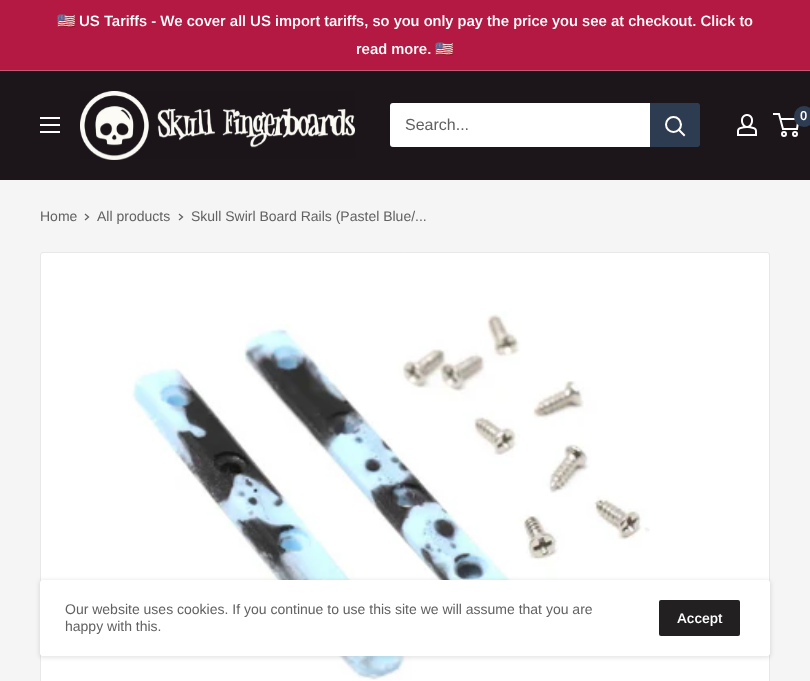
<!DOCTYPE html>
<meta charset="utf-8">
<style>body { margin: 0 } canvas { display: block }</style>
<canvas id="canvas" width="810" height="681"></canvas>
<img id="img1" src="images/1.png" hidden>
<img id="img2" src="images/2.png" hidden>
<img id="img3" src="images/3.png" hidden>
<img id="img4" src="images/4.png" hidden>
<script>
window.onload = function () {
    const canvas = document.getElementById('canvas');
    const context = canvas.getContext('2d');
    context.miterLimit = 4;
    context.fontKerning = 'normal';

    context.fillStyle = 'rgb(245, 245, 245)';
    context.fillRect(0, 0, 810, 681);
    context.fillStyle = 'rgb(179, 25, 66)';
    context.fillRect(0, 0, 810, 70);
    context.fillStyle = 'rgb(195, 87, 116)';
    context.fillRect(0, 70, 810, 1);
    context.fillStyle = 'rgb(28, 22, 27)';
    context.fillRect(0, 71, 810, 109);
    context.drawImage(document.getElementById('img1'), 80, 91, 275, 69);
    context.drawImage(document.getElementById('img2'), 737, 114, 20, 22);
    context.beginPath();
    context.arc(784, 134, 2, 0, 2 * Math.PI);
    context.strokeStyle = 'rgb(255, 255, 255)';
    context.lineWidth = 2;
    context.stroke();
    context.beginPath();
    context.arc(795, 134, 2, 0, 2 * Math.PI);
    context.stroke();
    context.beginPath();
    context.moveTo(780.5, 119);
    context.lineTo(798.5, 119);
    context.lineTo(797, 129);
    context.lineTo(783, 129);
    context.lineTo(779, 114);
    context.lineTo(773, 114);
    context.stroke();
    context.fillStyle = 'rgb(46, 60, 81)';
    context.beginPath();
    context.roundRect(794, 106, 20, 21, 10);
    context.fill();
    context.drawImage(document.getElementById('img3'), 40, 117, 20, 16);
    context.fillStyle = 'rgb(255, 255, 255)';
    context.beginPath();
    context.roundRect(390, 103, 310, 44, [3, 5, 5, 3]);
    context.fill();
    context.fillStyle = 'rgb(46, 60, 81)';
    context.beginPath();
    context.roundRect(650, 103, 50, 44, [0, 3, 3, 0]);
    context.fill();
    context.beginPath();
    context.moveTo(684, 135);
    context.lineTo(679, 130);
    context.lineCap = 'square';
    context.stroke();
    context.beginPath();
    context.arc(673.5, 124.5, 7.5, 0, 2 * Math.PI);
    context.stroke();
    context.beginPath();
    context.moveTo(85.5, 214.5);
    context.lineTo(88.5, 217);
    context.lineTo(85.5, 219.5);
    context.strokeStyle = 'rgb(97, 97, 97)';
    context.lineWidth = 1.3;
    context.stroke();
    context.beginPath();
    context.moveTo(179.5, 214.5);
    context.lineTo(182.5, 217);
    context.lineTo(179.5, 219.5);
    context.stroke();
    context.fillStyle = 'rgb(255, 255, 255)';
    context.beginPath();
    context.roundRect(40.5, 252.5, 729, 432, 2.5);
    context.fill();
    context.strokeStyle = 'rgb(232, 232, 232)';
    context.lineWidth = 1;
    context.stroke();
    context.drawImage(document.getElementById('img4'), 131, 311, 519, 369);
    context.fillStyle = 'rgba(0, 0, 0, 0.1)';
    context.filter = 'blur(2px)';
    context.beginPath();
    context.roundRect(39, 580, 732, 78, 4);
    context.fill();
    context.filter = 'none';
    context.fillStyle = 'rgb(255, 255, 255)';
    context.beginPath();
    context.roundRect(40, 580, 730, 76, 3);
    context.fill();
    context.fillStyle = 'rgb(34, 32, 33)';
    context.beginPath();
    context.roundRect(659, 600, 81, 36, 2);
    context.fill();
    context.font = 'bold 15px Noto Color Emoji';
    context.fillStyle = 'rgb(255, 255, 255)';
    context.fillText('🇺🇸', 57, 26);
    context.font = '600 15px Arimo';
    context.fillText('US Tariffs - We cover all US import tariffs, so you only pay the price you see at checkout. Click to', 79, 26);
    context.fillText('read more.', 356, 54);
    context.font = 'bold 15px Noto Color Emoji';
    context.fillText('🇺🇸', 435, 54);
    context.font = '600 13px Arimo';
    context.fillText('0', 800, 120);
    context.font = '16px Arimo';
    context.fillStyle = 'rgb(97, 97, 97)';
    context.fillText('Search...', 405, 130);
    context.font = '14px Arimo';
    context.fillText('Home', 40, 221);
    context.fillText('All products', 97, 221);
    context.fillText('Skull Swirl Board Rails (Pastel Blue/...', 191, 221);
    context.fillText('Our website uses cookies. If you continue to use this site we will assume that you are', 65, 614);
    context.fillText('happy with this.', 65, 631);
    context.font = '600 14px Arimo';
    context.fillStyle = 'rgb(255, 255, 255)';
    context.fillText('Accept', 677, 623);
};
</script>
